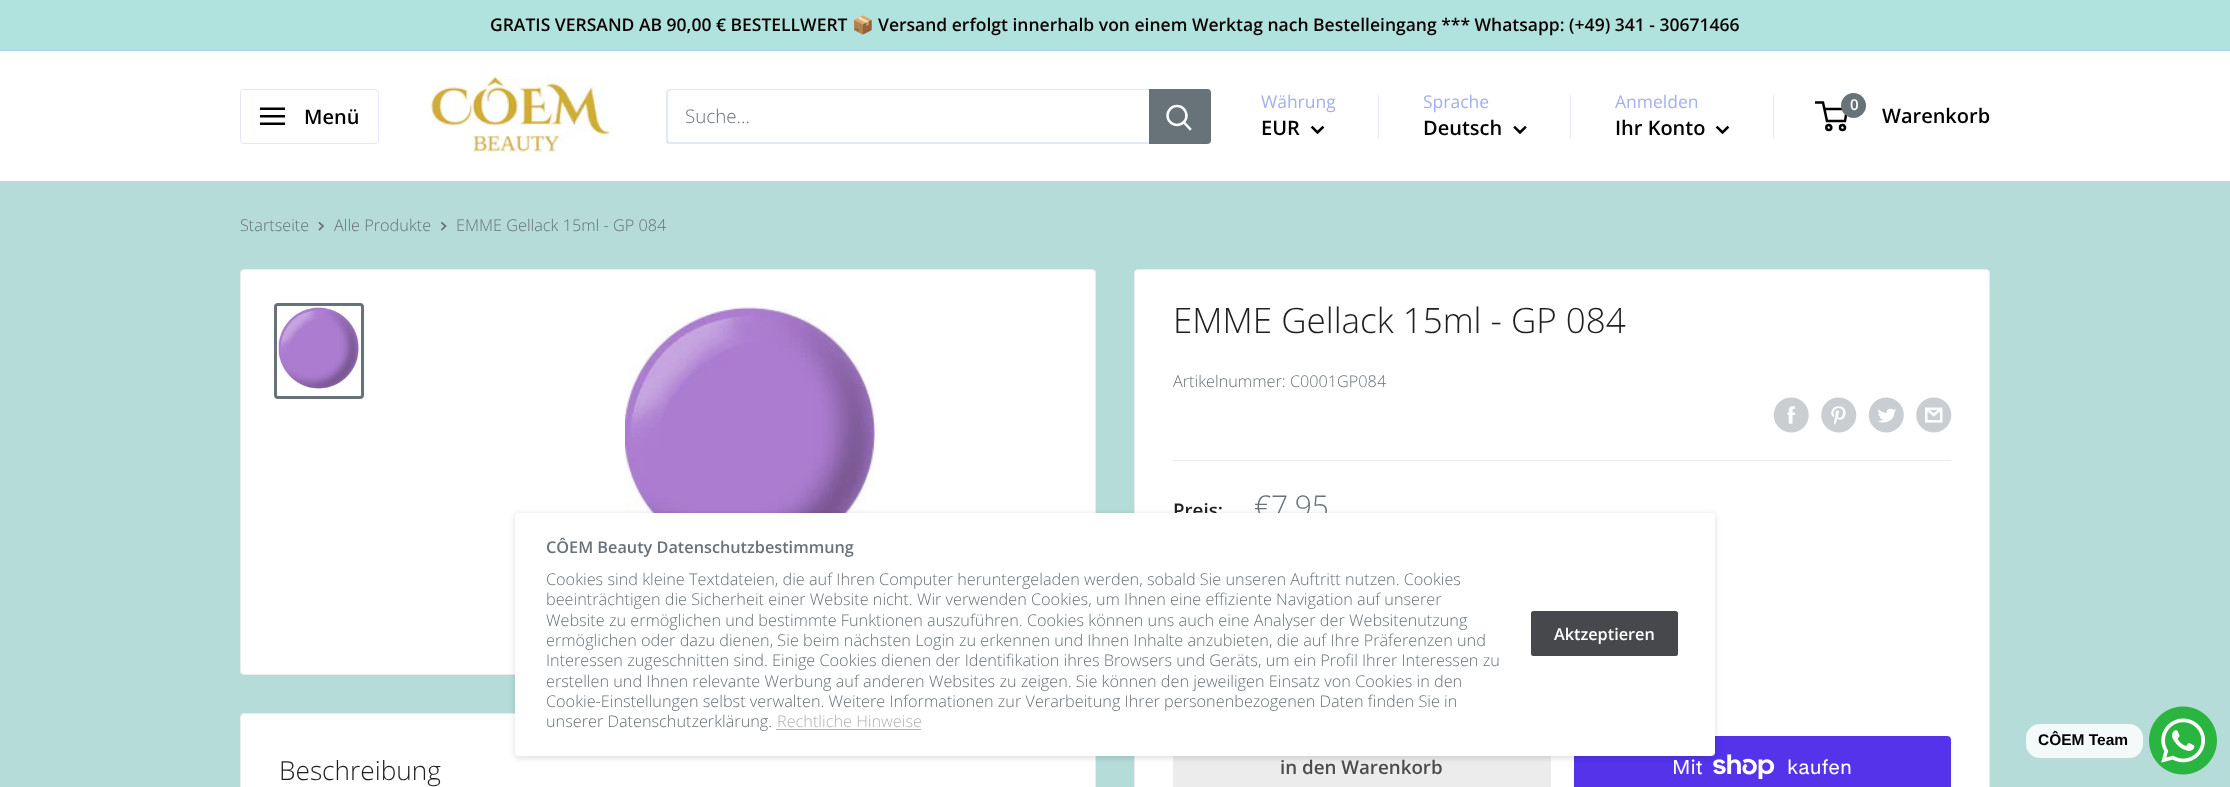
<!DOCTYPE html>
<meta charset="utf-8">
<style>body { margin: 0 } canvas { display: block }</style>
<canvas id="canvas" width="2230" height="787"></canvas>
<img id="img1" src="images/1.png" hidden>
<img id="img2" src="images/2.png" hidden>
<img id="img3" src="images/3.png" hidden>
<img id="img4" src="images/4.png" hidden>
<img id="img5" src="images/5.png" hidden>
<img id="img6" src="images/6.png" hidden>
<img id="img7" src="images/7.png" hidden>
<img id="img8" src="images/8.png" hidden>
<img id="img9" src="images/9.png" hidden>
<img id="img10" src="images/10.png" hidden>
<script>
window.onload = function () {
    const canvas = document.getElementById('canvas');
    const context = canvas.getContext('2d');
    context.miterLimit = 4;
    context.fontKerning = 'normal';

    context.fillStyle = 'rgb(181, 220, 216)';
    context.fillRect(0, 0, 2230, 787);
    context.fillStyle = 'rgb(176, 226, 222)';
    context.fillRect(0, 0, 2230, 50);
    context.fillStyle = 'rgb(172, 211, 227)';
    context.fillRect(0, 50, 2230, 1);
    context.fillStyle = 'rgb(255, 255, 255)';
    context.fillRect(0, 51, 2230, 130);
    context.beginPath();
    context.roundRect(240.5, 89.5, 138, 54, 3.5);
    context.strokeStyle = 'rgb(227, 231, 250)';
    context.stroke();
    context.drawImage(document.getElementById('img1'), 260, 107, 25, 18);
    context.drawImage(document.getElementById('img2'), 426, 76, 190, 80);
    context.fillStyle = 'rgb(227, 231, 250)';
    context.beginPath();
    context.moveTo(666, 141);
    context.bezierCurveTo(667, 143, 668, 144, 670, 144);
    context.lineTo(1207, 144);
    context.bezierCurveTo(1209, 144, 1211, 142, 1211, 140);
    context.lineTo(1211, 93);
    context.bezierCurveTo(1211, 92, 1211, 91, 1210, 90);
    context.lineTo(1210, 139);
    context.bezierCurveTo(1210, 141, 1208, 142, 1206, 142);
    context.lineTo(669, 142);
    context.closePath();
    context.fill();
    context.fillStyle = 'rgba(163, 175, 239, 0.3)';
    context.beginPath();
    context.moveTo(671, 90);
    context.lineTo(1210, 90);
    context.bezierCurveTo(1209, 89, 1208, 89, 1207, 89);
    context.lineTo(670, 89);
    context.bezierCurveTo(668, 89, 666, 91, 666, 93);
    context.lineTo(666, 140);
    context.bezierCurveTo(666, 142, 667, 143, 669, 144);
    context.lineTo(668, 141);
    context.lineTo(668, 94);
    context.bezierCurveTo(668, 92, 669, 90, 671, 90);
    context.closePath();
    context.fill();
    context.fillStyle = 'rgb(103, 114, 121)';
    context.beginPath();
    context.roundRect(1149, 89, 62, 55, [0, 4, 4, 0]);
    context.fill();
    context.beginPath();
    context.moveTo(1190, 129);
    context.lineTo(1184, 122.5);
    context.strokeStyle = 'rgb(255, 255, 255)';
    context.lineWidth = 2.5;
    context.lineCap = 'square';
    context.stroke();
    context.beginPath();
    context.arc(1177, 115.5, 9.5, 0, 2 * Math.PI);
    context.stroke();
    context.fillStyle = 'rgb(227, 231, 250)';
    context.fillRect(1378, 95, 1, 43);
    context.beginPath();
    context.moveTo(1322.5, 127.5);
    context.lineTo(1317.5, 132.5);
    context.lineTo(1312.5, 127.5);
    context.strokeStyle = 'rgb(0, 0, 0)';
    context.stroke();
    context.fillRect(1570, 95, 1, 43);
    context.beginPath();
    context.moveTo(1525, 127.5);
    context.lineTo(1520, 132.5);
    context.lineTo(1515, 127.5);
    context.stroke();
    context.fillRect(1773, 95, 1, 43);
    context.beginPath();
    context.moveTo(1727.5, 127.5);
    context.lineTo(1722.5, 132.5);
    context.lineTo(1717.5, 127.5);
    context.stroke();
    context.beginPath();
    context.arc(1828.8, 127.5, 2.5, 0, 2 * Math.PI);
    context.stroke();
    context.beginPath();
    context.arc(1842.5, 127.5, 2.5, 0, 2 * Math.PI);
    context.stroke();
    context.beginPath();
    context.moveTo(1824, 109);
    context.lineTo(1847, 109);
    context.lineTo(1845, 121);
    context.lineTo(1827, 121);
    context.lineTo(1823, 102.5);
    context.lineTo(1815, 102.5);
    context.lineCap = 'butt';
    context.stroke();
    context.fillStyle = 'rgb(103, 114, 121)';
    context.beginPath();
    context.arc(1853.5, 105.5, 12.5, 0, 2 * Math.PI);
    context.fill();
    context.beginPath();
    context.moveTo(319.5, 223);
    context.lineTo(323, 226);
    context.lineTo(319.5, 229.5);
    context.strokeStyle = 'rgb(103, 114, 121)';
    context.lineWidth = 1.7;
    context.lineCap = 'square';
    context.stroke();
    context.beginPath();
    context.moveTo(442, 223);
    context.lineTo(445.5, 226);
    context.lineTo(442, 229.5);
    context.stroke();
    context.fillStyle = 'rgb(255, 255, 255)';
    context.beginPath();
    context.roundRect(240.5, 269.5, 855, 405, 3.5);
    context.fill();
    context.strokeStyle = 'rgb(236, 236, 236)';
    context.lineWidth = 1;
    context.stroke();
    context.beginPath();
    context.roundRect(275.5, 304.5, 87, 93, 2.5);
    context.strokeStyle = 'rgb(103, 114, 121)';
    context.lineWidth = 3;
    context.stroke();
    context.drawImage(document.getElementById('img3'), 278, 307, 81, 84);
    context.drawImage(document.getElementById('img4'), 625, 307, 250, 206);
    context.beginPath();
    context.roundRect(1134.5, 269.5, 855, 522, 3.5);
    context.fill();
    context.strokeStyle = 'rgb(236, 236, 236)';
    context.lineWidth = 1;
    context.stroke();
    context.drawImage(document.getElementById('img5'), 1773, 397, 36, 36);
    context.drawImage(document.getElementById('img6'), 1821, 397, 36, 36);
    context.drawImage(document.getElementById('img7'), 1868, 397, 36, 36);
    context.drawImage(document.getElementById('img8'), 1916, 397, 36, 36);
    context.fillStyle = 'rgb(236, 236, 236)';
    context.fillRect(1173, 460, 778, 1);
    context.fillRect(1173, 756, 378, 31);
    context.fillStyle = 'rgb(84, 51, 235)';
    context.beginPath();
    context.roundRect(1574, 736, 377, 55, 4);
    context.fill();
    context.drawImage(document.getElementById('img9'), 1713, 754, 62, 25);
    context.fillStyle = 'rgb(255, 255, 255)';
    context.beginPath();
    context.roundRect(240.5, 713.5, 855, 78, 3.5);
    context.fill();
    context.stroke();
    context.fillStyle = 'rgba(0, 0, 0, 0.1)';
    context.filter = 'blur(2.5px)';
    context.beginPath();
    context.roundRect(514, 513, 1202, 246, 5);
    context.fill();
    context.filter = 'none';
    context.fillStyle = 'rgb(244, 250, 249)';
    context.beginPath();
    context.roundRect(2026, 724, 117, 34, 14);
    context.fill();
    context.drawImage(document.getElementById('img10'), 2149, 706, 68, 69);
    context.font = '600 17.5px Open Sans';
    context.fillStyle = 'rgb(11, 0, 0)';
    context.fillText('GRATIS VERSAND AB 90,00 € BESTELLWERT', 490, 31);
    context.font = 'bold 17.5px Noto Color Emoji';
    context.fillText('📦', 852, 31);
    context.font = '600 17.5px Open Sans';
    context.fillText('Versand erfolgt innerhalb von einem Werktag nach Bestelleingang *** Whatsapp: (+49) 341 - 30671466', 878, 31);
    context.font = '600 20px Open Sans';
    context.fillStyle = 'rgb(0, 0, 0)';
    context.fillText('Menü', 304, 124);
    context.font = '300 18.75px Open Sans';
    context.fillStyle = 'rgb(103, 114, 121)';
    context.fillText('Suche...', 685, 123);
    context.font = '17.5px Open Sans';
    context.fillStyle = 'rgb(163, 175, 239)';
    context.fillText('Währung', 1261, 108);
    context.font = '600 20px Open Sans';
    context.fillStyle = 'rgb(0, 0, 0)';
    context.fillText('EUR', 1261, 135);
    context.font = '17.5px Open Sans';
    context.fillStyle = 'rgb(163, 175, 239)';
    context.fillText('Sprache', 1423, 108);
    context.font = '600 20px Open Sans';
    context.fillStyle = 'rgb(0, 0, 0)';
    context.fillText('Deutsch', 1423, 135);
    context.font = '17.5px Open Sans';
    context.fillStyle = 'rgb(163, 175, 239)';
    context.fillText('Anmelden', 1615, 108);
    context.font = '600 20px Open Sans';
    context.fillStyle = 'rgb(0, 0, 0)';
    context.fillText('Ihr Konto', 1615, 135);
    context.font = '600 15px Open Sans';
    context.fillStyle = 'rgb(255, 255, 255)';
    context.fillText('0', 1850, 110);
    context.font = '600 20px Open Sans';
    context.fillStyle = 'rgb(0, 0, 0)';
    context.fillText('Warenkorb', 1882, 123);
    context.font = '300 16.25px Open Sans';
    context.fillStyle = 'rgb(103, 114, 121)';
    context.fillText('Startseite', 240, 231);
    context.fillText('Alle Produkte', 334, 231);
    context.fillText('EMME Gellack 15ml - GP 084', 456, 231);
    context.font = '300 35px Open Sans';
    context.fillStyle = 'rgb(31, 31, 31)';
    context.fillText('EMME Gellack 15ml - GP 084', 1173, 333);
    context.font = '300 16.25px Open Sans';
    context.fillStyle = 'rgb(103, 114, 121)';
    context.fillText('Artikelnummer: C0001GP084', 1173, 387);
    context.font = '600 18.75px Open Sans';
    context.fillStyle = 'rgb(31, 31, 31)';
    context.fillText('Preis:', 1173, 517);
    context.font = '300 30px Open Sans';
    context.fillStyle = 'rgb(103, 114, 121)';
    context.fillText('€7,95', 1254, 517);
    context.font = '600 18.75px Open Sans';
    context.fillStyle = 'rgb(76, 76, 76)';
    context.fillText('in den Warenkorb', 1280, 774);
    context.font = '20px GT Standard';
    context.fillStyle = 'rgb(255, 255, 255)';
    context.fillText('Mit', 1672, 774);
    context.fillText('kaufen', 1787, 774);
    context.font = '300 26.25px Open Sans';
    context.fillStyle = 'rgb(31, 31, 31)';
    context.fillText('Beschreibung', 279, 780);
    context.fillStyle = 'rgb(255, 255, 255)';
    context.beginPath();
    context.roundRect(515, 513, 1200, 243, 4);
    context.fill();
    context.font = '600 16.25px Open Sans';
    context.fillStyle = 'rgb(103, 114, 121)';
    context.fillText('CÔEM Beauty Datenschutzbestimmung', 546, 553);
    context.font = '300 16.25px Open Sans';
    context.fillText('Cookies sind kleine Textdateien, die auf Ihren Computer heruntergeladen werden, sobald Sie unseren Auftritt nutzen. Cookies', 546, 585);
    context.fillText('beeinträchtigen die Sicherheit einer Website nicht. Wir verwenden Cookies, um Ihnen eine effiziente Navigation auf unserer', 546, 605);
    context.fillText('Website zu ermöglichen und bestimmte Funktionen auszuführen. Cookies können uns auch eine Analyser der Websitenutzung', 546, 626);
    context.fillText('ermöglichen oder dazu dienen, Sie beim nächsten Login zu erkennen und Ihnen Inhalte anzubieten, die auf Ihre Präferenzen und', 546, 646);
    context.fillText('Interessen zugeschnitten sind. Einige Cookies dienen der Identifikation ihres Browsers und Geräts, um ein Profil Ihrer Interessen zu', 546, 666);
    context.fillText('erstellen und Ihnen relevante Werbung auf anderen Websites zu zeigen. Sie können den jeweiligen Einsatz von Cookies in den', 546, 687);
    context.fillText('Cookie-Einstellungen selbst verwalten. Weitere Informationen zur Verarbeitung Ihrer personenbezogenen Daten finden Sie in', 546, 707);
    context.fillText('unserer Datenschutzerklärung.', 546, 727);
    context.fillStyle = 'rgb(177, 177, 177)';
    context.fillText('Rechtliche Hinweise', 777, 727);
    context.fillRect(776, 729, 145, 1);
    context.fillStyle = 'rgb(71, 72, 75)';
    context.beginPath();
    context.roundRect(1531, 611, 147, 45, 2.5);
    context.fill();
    context.font = '600 16.25px Open Sans';
    context.fillStyle = 'rgb(255, 255, 255)';
    context.fillText('Aktzeptieren', 1554, 640);
    context.font = 'bold 15.5px Liberation Sans';
    context.fillStyle = 'rgb(0, 0, 0)';
    context.fillText('CÔEM Team', 2038, 745);
};
</script>
